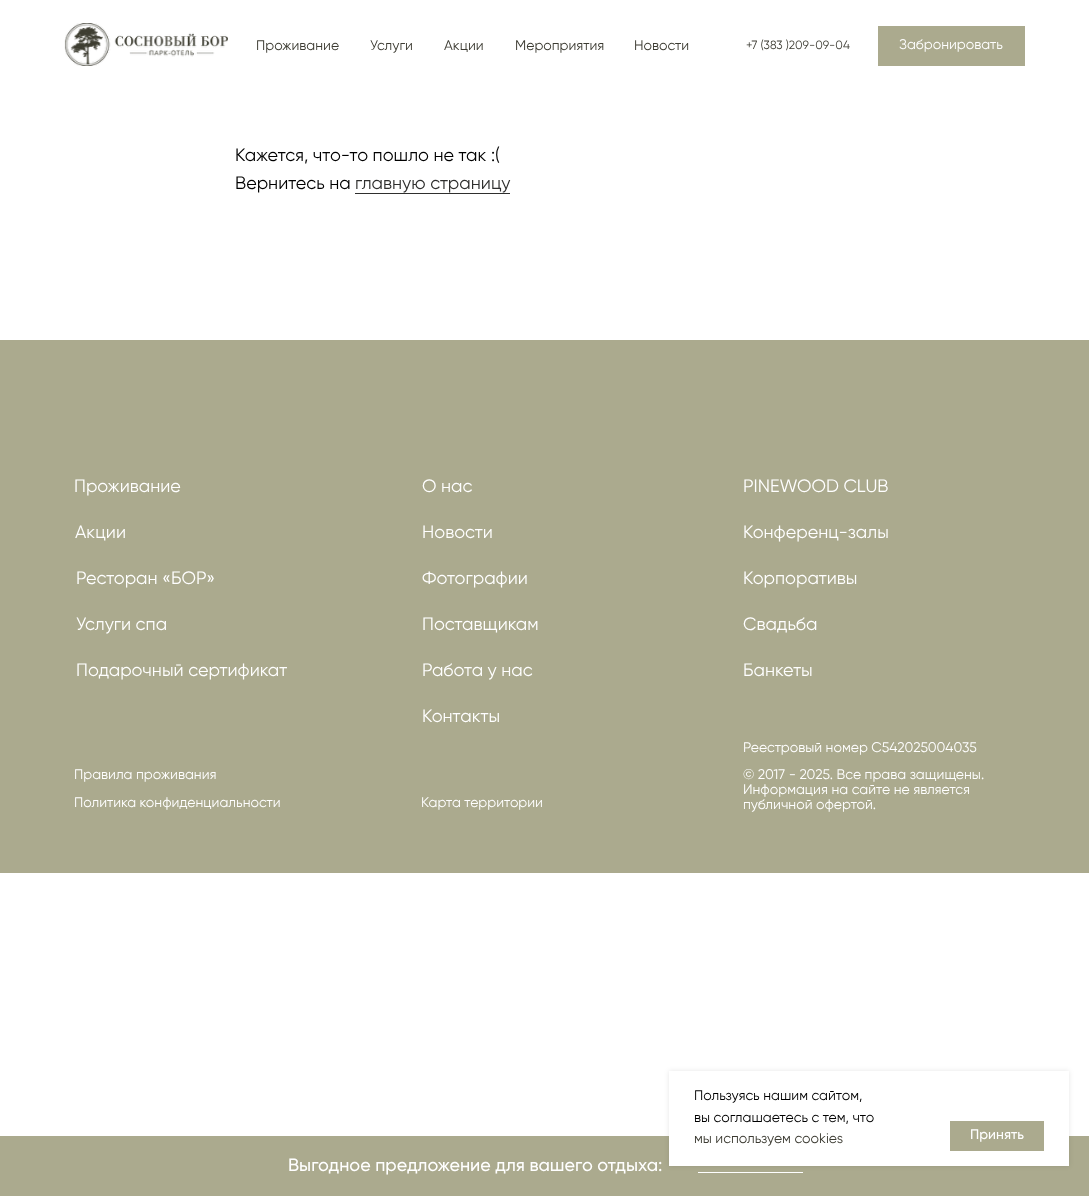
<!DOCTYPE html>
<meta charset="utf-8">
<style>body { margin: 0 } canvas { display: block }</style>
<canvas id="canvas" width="1089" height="1196"></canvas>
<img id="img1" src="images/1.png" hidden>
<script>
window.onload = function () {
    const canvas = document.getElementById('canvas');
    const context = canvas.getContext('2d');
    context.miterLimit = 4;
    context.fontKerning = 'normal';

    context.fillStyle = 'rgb(255, 255, 255)';
    context.fillRect(0, 0, 1089, 1196);
    context.drawImage(document.getElementById('img1'), 64, 23, 164, 43);
    context.fillStyle = 'rgb(171, 170, 142)';
    context.fillRect(878, 26, 147, 40);
    context.fillRect(0, 1136, 1089, 60);
    context.fillStyle = 'rgb(255, 255, 255)';
    context.fillRect(698, 1172, 105, 1);
    context.fillStyle = 'rgb(47, 47, 46)';
    context.fillRect(355, 193, 155, 1);
    context.fillStyle = 'rgb(171, 170, 142)';
    context.fillRect(0, 340, 1089, 533);
    context.fillStyle = 'rgba(0, 0, 0, 0.1)';
    context.filter = 'blur(2.5px)';
    context.beginPath();
    context.rect(669, 1071, 400, 95);
    context.fill();
    context.filter = 'none';
    context.fillStyle = 'rgb(255, 255, 255)';
    context.fillRect(669, 1071, 400, 95);
    context.fillStyle = 'rgb(171, 170, 142)';
    context.fillRect(950, 1121, 94, 30);
    context.font = '14px Gilroy';
    context.fillStyle = 'rgb(60, 59, 50)';
    context.fillText('Проживание', 256, 50);
    context.fillText('Услуги', 370, 50);
    context.fillText('Акции', 444, 50);
    context.fillText('Мероприятия', 515, 50);
    context.fillText('Новости', 634, 50);
    context.font = '12px Gilroy';
    context.fillText('+7 (383 )209-09-04', 746, 49);
    context.font = '14px Gilroy';
    context.fillStyle = 'rgb(255, 255, 255)';
    context.fillText('Забронировать', 899, 49);
    context.font = '500 18px Gilroy';
    context.fillText('Выгодное предложение для вашего отдыха:', 288, 1171);
    context.font = '18px Gilroy';
    context.fillStyle = 'rgb(0, 0, 0)';
    context.fillText('Кажется, что-то пошло не так :(', 235, 161);
    context.fillText('Вернитесь на', 235, 189);
    context.fillStyle = 'rgb(47, 47, 46)';
    context.fillText('главную страницу', 355, 189);
    context.fillStyle = 'rgb(255, 255, 255)';
    context.fillText('Проживание', 74, 492);
    context.fillText('О нас', 422, 492);
    context.fillText('PINEWOOD CLUB', 743, 492);
    context.fillText('Акции', 75, 538);
    context.fillText('Новости', 422, 538);
    context.fillText('Конференц-залы', 743, 538);
    context.fillText('Ресторан «БОР»', 76, 584);
    context.fillText('Фотографии', 422, 584);
    context.fillText('Корпоративы', 743, 584);
    context.fillText('Услуги спа', 76, 630);
    context.fillText('Поставщикам', 422, 630);
    context.fillText('Свадьба', 743, 630);
    context.fillText('Подарочный сертификат', 76, 676);
    context.fillText('Работа у нас', 422, 676);
    context.fillText('Банкеты', 743, 676);
    context.fillText('Контакты', 422, 722);
    context.font = '14px Gilroy';
    context.fillText('Реестровый номер С542025004035', 743, 752);
    context.fillText('Правила проживания', 74, 779);
    context.fillText('© 2017 - 2025. Все права защищены.', 743, 779);
    context.fillText('Политика конфиденциальности', 74, 807);
    context.fillText('Карта территории', 421, 807);
    context.fillText('Информация на сайте не является', 743, 794);
    context.fillText('публичной офертой.', 743, 809);
    context.fillStyle = 'rgb(0, 0, 0)';
    context.fillText('Пользуясь нашим сайтом,', 694, 1100);
    context.fillText('вы соглашаетесь с тем, что', 694, 1122);
    context.fillStyle = 'rgb(60, 59, 50)';
    context.fillText('мы используем cookies', 694, 1143);
    context.font = '500 14px Gilroy';
    context.fillStyle = 'rgb(255, 255, 255)';
    context.fillText('Принять', 970, 1139);
};
</script>
